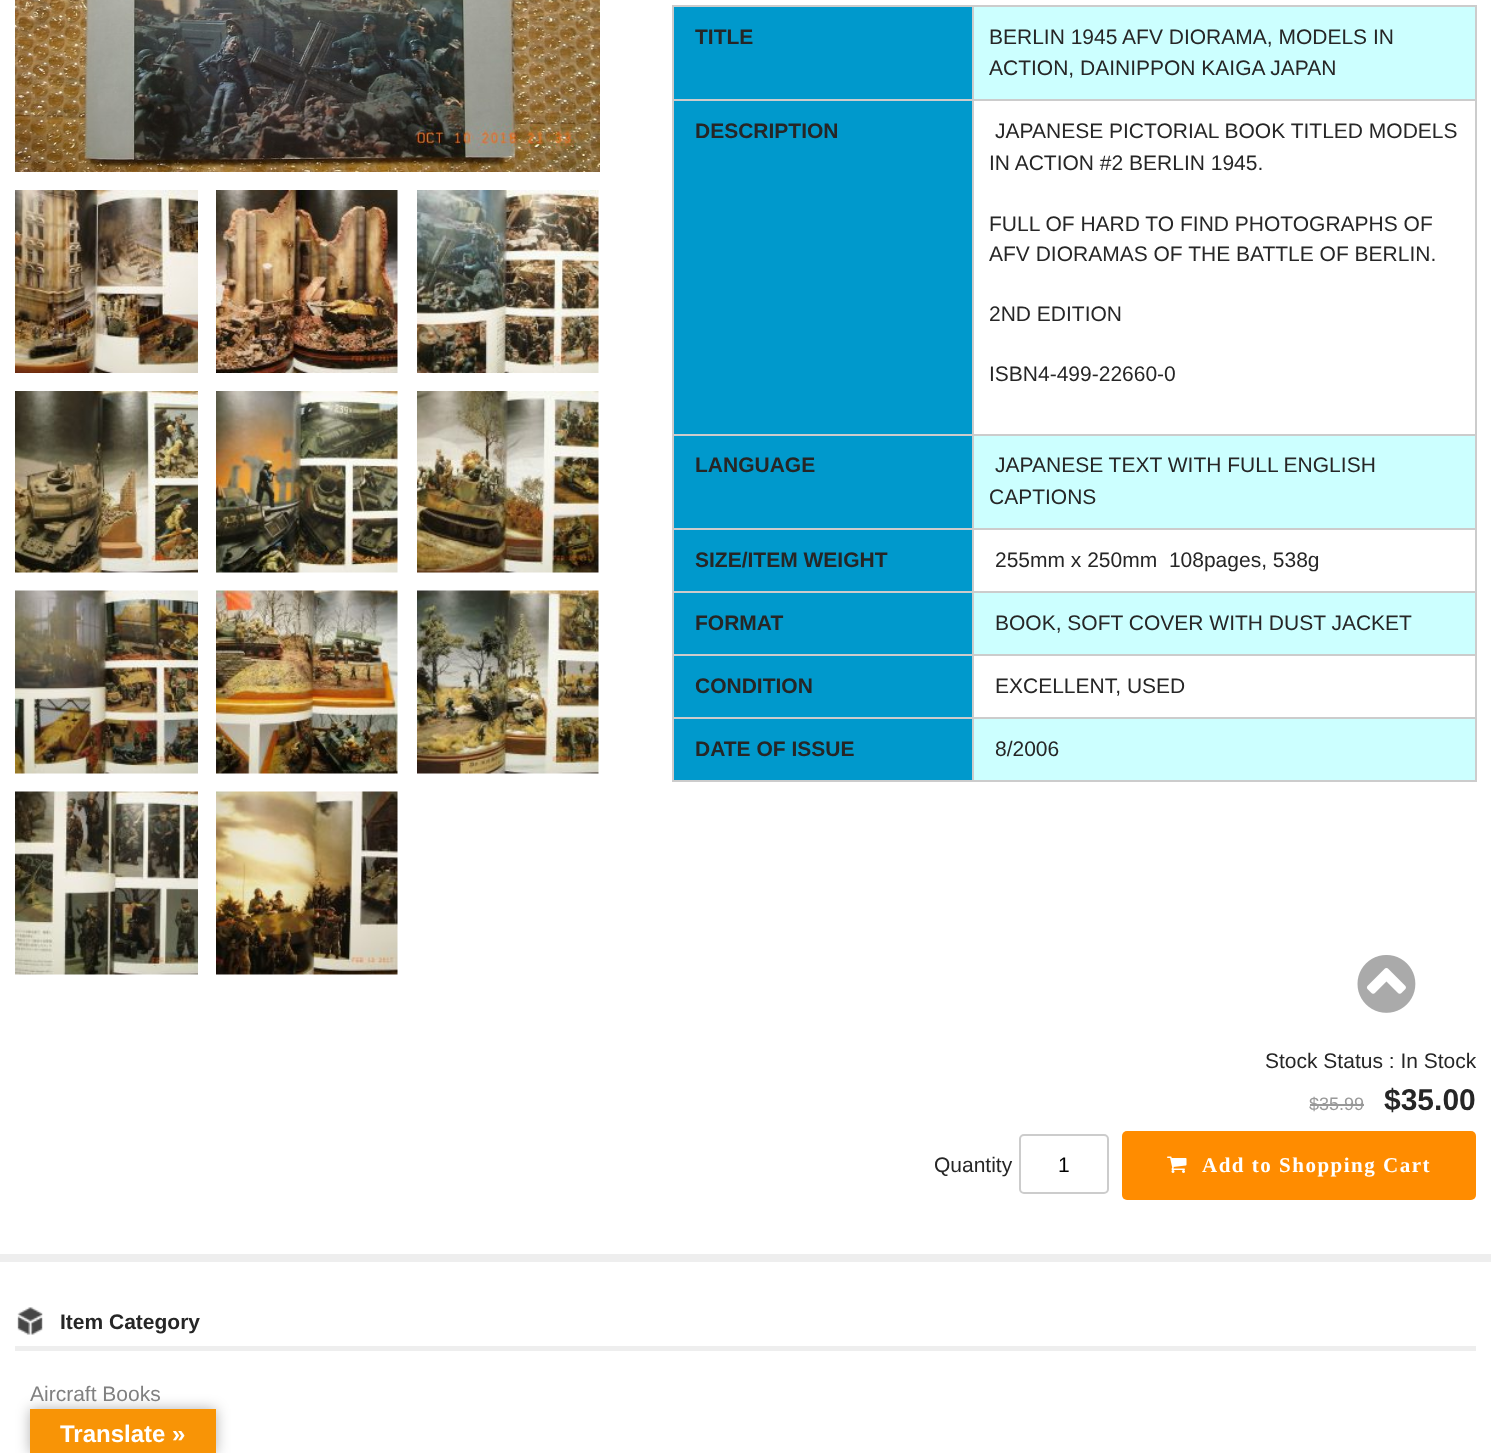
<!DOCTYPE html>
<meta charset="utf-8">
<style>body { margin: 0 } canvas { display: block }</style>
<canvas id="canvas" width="1491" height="1453"></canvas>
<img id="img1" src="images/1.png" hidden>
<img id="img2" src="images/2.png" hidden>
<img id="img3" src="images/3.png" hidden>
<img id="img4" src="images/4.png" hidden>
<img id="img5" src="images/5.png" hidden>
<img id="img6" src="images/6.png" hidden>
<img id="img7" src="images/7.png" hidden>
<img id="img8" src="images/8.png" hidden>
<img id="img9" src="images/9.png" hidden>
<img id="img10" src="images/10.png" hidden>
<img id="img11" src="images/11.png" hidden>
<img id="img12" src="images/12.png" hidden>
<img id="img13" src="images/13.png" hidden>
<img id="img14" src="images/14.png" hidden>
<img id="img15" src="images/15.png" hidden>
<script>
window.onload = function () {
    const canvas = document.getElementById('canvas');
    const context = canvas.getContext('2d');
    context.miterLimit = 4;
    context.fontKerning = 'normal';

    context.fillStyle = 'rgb(255, 255, 255)';
    context.fillRect(0, 0, 1491, 1453);
    context.drawImage(document.getElementById('img1'), 15, 0, 585, 172);
    context.drawImage(document.getElementById('img2'), 15, 190, 183, 183);
    context.drawImage(document.getElementById('img3'), 216, 190, 182, 183);
    context.drawImage(document.getElementById('img4'), 417, 190, 182, 183);
    context.drawImage(document.getElementById('img5'), 15, 391, 183, 182);
    context.drawImage(document.getElementById('img6'), 216, 391, 182, 182);
    context.drawImage(document.getElementById('img7'), 417, 391, 182, 182);
    context.drawImage(document.getElementById('img8'), 15, 590, 183, 184);
    context.drawImage(document.getElementById('img9'), 216, 590, 182, 184);
    context.drawImage(document.getElementById('img10'), 417, 590, 182, 184);
    context.drawImage(document.getElementById('img11'), 15, 791, 183, 184);
    context.drawImage(document.getElementById('img12'), 216, 791, 182, 184);
    context.fillStyle = 'rgb(204, 204, 204)';
    context.fillRect(672, 5, 804, 2);
    context.fillRect(1475, 5, 2, 777);
    context.fillRect(672, 780, 804, 2);
    context.fillRect(672, 5, 2, 777);
    context.fillStyle = 'rgb(0, 153, 204)';
    context.fillRect(674, 7, 298, 92);
    context.fillStyle = 'rgb(204, 255, 255)';
    context.fillRect(974, 7, 501, 92);
    context.fillStyle = 'rgb(204, 204, 204)';
    context.fillRect(972, 99, 504, 2);
    context.fillRect(972, 434, 504, 2);
    context.fillRect(972, 528, 504, 2);
    context.fillRect(972, 591, 504, 2);
    context.fillRect(972, 654, 504, 2);
    context.fillRect(972, 717, 504, 2);
    context.fillRect(972, 717, 2, 65);
    context.fillRect(672, 717, 302, 2);
    context.fillRect(972, 654, 2, 65);
    context.fillRect(672, 654, 302, 2);
    context.fillRect(972, 591, 2, 65);
    context.fillRect(672, 591, 302, 2);
    context.fillRect(972, 528, 2, 65);
    context.fillRect(672, 528, 302, 2);
    context.fillRect(972, 434, 2, 96);
    context.fillRect(672, 434, 302, 2);
    context.fillRect(972, 99, 2, 336);
    context.fillRect(672, 99, 302, 2);
    context.fillRect(972, 5, 2, 96);
    context.fillStyle = 'rgb(0, 153, 204)';
    context.fillRect(674, 101, 298, 333);
    context.fillRect(674, 436, 298, 92);
    context.fillStyle = 'rgb(204, 255, 255)';
    context.fillRect(974, 436, 501, 92);
    context.fillStyle = 'rgb(0, 153, 204)';
    context.fillRect(674, 530, 298, 61);
    context.fillRect(674, 593, 298, 61);
    context.fillStyle = 'rgb(204, 255, 255)';
    context.fillRect(974, 593, 501, 61);
    context.fillStyle = 'rgb(0, 153, 204)';
    context.fillRect(674, 656, 298, 61);
    context.fillRect(674, 719, 298, 61);
    context.fillStyle = 'rgb(204, 255, 255)';
    context.fillRect(974, 719, 501, 61);
    context.fillStyle = 'rgb(153, 153, 153)';
    context.fillRect(1310, 1104, 54, 2);
    context.beginPath();
    context.roundRect(1020, 1135, 88, 58, 4);
    context.strokeStyle = 'rgb(204, 204, 204)';
    context.lineWidth = 2;
    context.stroke();
    context.fillStyle = 'rgb(255, 140, 0)';
    context.beginPath();
    context.roundRect(1122, 1131, 354, 69, 5);
    context.fill();
    context.drawImage(document.getElementById('img13'), 1167, 1156, 20, 17);
    context.fillStyle = 'rgb(238, 238, 238)';
    context.fillRect(0, 1254, 1491, 8);
    context.fillRect(15, 1346, 1461, 5);
    context.drawImage(document.getElementById('img14'), 17, 1307, 26, 28);
    context.drawImage(document.getElementById('img15'), 1357, 955, 59, 58);
    context.fillStyle = 'rgba(0, 0, 0, 0.3)';
    context.filter = 'blur(7px)';
    context.beginPath();
    context.rect(30, 1409, 186, 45);
    context.fill();
    context.filter = 'none';
    context.fillStyle = 'rgb(248, 148, 6)';
    context.fillRect(30, 1409, 186, 44);
    context.font = 'bold 21px Liberation Sans';
    context.fillStyle = 'rgb(38, 38, 38)';
    context.fillText('TITLE', 695, 44);
    context.font = '21px Liberation Sans';
    context.fillText('BERLIN 1945 AFV DIORAMA, MODELS IN', 989, 44);
    context.fillText('ACTION, DAINIPPON KAIGA JAPAN', 989, 75);
    context.font = 'bold 21px Liberation Sans';
    context.fillText('DESCRIPTION', 695, 138);
    context.font = '21px Liberation Sans';
    context.fillText('JAPANESE PICTORIAL BOOK TITLED MODELS', 995, 138);
    context.fillText('IN ACTION #2 BERLIN 1945.', 989, 170);
    context.fillText('FULL OF HARD TO FIND PHOTOGRAPHS OF', 989, 231);
    context.fillText('AFV DIORAMAS OF THE BATTLE OF BERLIN.', 989, 261);
    context.fillText('2ND EDITION', 989, 321);
    context.fillText('ISBN4-499-22660-0', 989, 381);
    context.font = 'bold 21px Liberation Sans';
    context.fillText('LANGUAGE', 695, 472);
    context.font = '21px Liberation Sans';
    context.fillText('JAPANESE TEXT WITH FULL ENGLISH', 995, 472);
    context.fillText('CAPTIONS', 989, 504);
    context.font = 'bold 21px Liberation Sans';
    context.fillText('SIZE/ITEM WEIGHT', 695, 567);
    context.font = '21px Liberation Sans';
    context.fillText('255mm x 250mm  108pages, 538g', 995, 567);
    context.font = 'bold 21px Liberation Sans';
    context.fillText('FORMAT', 695, 630);
    context.font = '21px Liberation Sans';
    context.fillText('BOOK, SOFT COVER WITH DUST JACKET', 995, 630);
    context.font = 'bold 21px Liberation Sans';
    context.fillText('CONDITION', 695, 693);
    context.font = '21px Liberation Sans';
    context.fillText('EXCELLENT, USED', 995, 693);
    context.font = 'bold 21px Liberation Sans';
    context.fillText('DATE OF ISSUE', 695, 756);
    context.font = '21px Liberation Sans';
    context.fillText('8/2006', 995, 756);
    context.fillText('Stock Status : In Stock', 1265, 1068);
    context.font = '18px Liberation Sans';
    context.fillStyle = 'rgb(153, 153, 153)';
    context.fillText('$35.99', 1309, 1110);
    context.font = 'bold 30px Liberation Sans';
    context.fillStyle = 'rgb(38, 38, 38)';
    context.fillText('$35.00', 1384, 1110);
    context.font = '21px Liberation Sans';
    context.fillText('Quantity', 934, 1172);
    context.fillStyle = 'rgb(0, 0, 0)';
    context.fillText('1', 1058, 1172);
    context.letterSpacing = '1.5px';
    context.font = 'bold 21px Liberation Serif';
    context.fillStyle = 'rgb(255, 255, 255)';
    context.fillText('Add to Shopping Cart', 1202, 1172);
    context.letterSpacing = '0px';
    context.font = 'bold 21px Liberation Sans';
    context.fillStyle = 'rgb(38, 38, 38)';
    context.fillText('Item Category', 60, 1329);
    context.font = '21px Liberation Sans';
    context.fillStyle = 'rgb(128, 128, 128)';
    context.fillText('Aircraft Books', 30, 1401);
    context.font = 'bold 24px Liberation Sans';
    context.fillStyle = 'rgb(255, 255, 255)';
    context.fillText('Translate »', 60, 1442);
};
</script>
